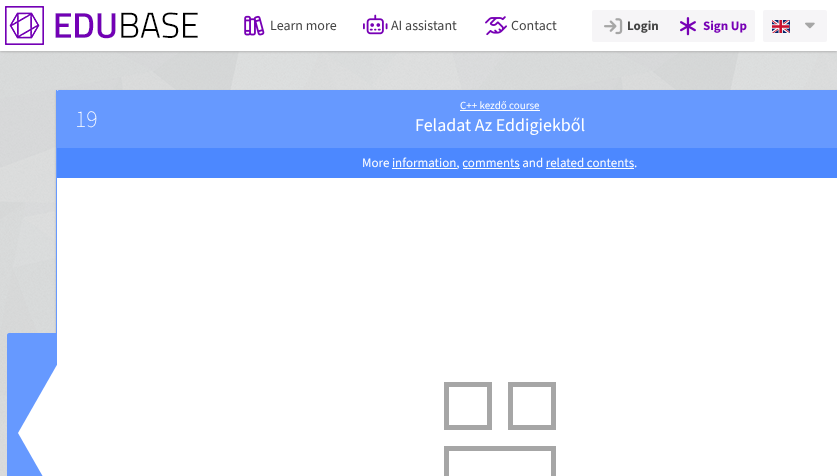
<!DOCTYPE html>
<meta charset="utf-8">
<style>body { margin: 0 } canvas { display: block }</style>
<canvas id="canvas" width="837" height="476"></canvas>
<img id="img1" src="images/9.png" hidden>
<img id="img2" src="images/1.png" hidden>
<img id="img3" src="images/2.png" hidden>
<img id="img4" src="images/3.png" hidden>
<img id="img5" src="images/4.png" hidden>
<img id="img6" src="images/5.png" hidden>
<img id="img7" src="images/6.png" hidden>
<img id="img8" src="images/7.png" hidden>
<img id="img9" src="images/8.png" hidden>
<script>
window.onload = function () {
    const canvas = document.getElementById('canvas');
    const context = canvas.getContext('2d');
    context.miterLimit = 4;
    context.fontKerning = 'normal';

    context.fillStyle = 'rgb(255, 255, 255)';
    context.fillRect(0, 0, 837, 476);
    context.drawImage(document.getElementById('img1'), 0, 51, 837, 425);
    context.fillStyle = 'rgb(179, 179, 179)';
    context.filter = 'blur(1px)';
    context.beginPath();
    context.rect(0, 1, 837, 51);
    context.fill();
    context.filter = 'none';
    context.fillStyle = 'rgb(255, 255, 255)';
    context.fillRect(0, 0, 837, 51);
    context.drawImage(document.getElementById('img2'), 5, 6, 193, 39);
    context.drawImage(document.getElementById('img3'), 244, 15, 21, 21);
    context.drawImage(document.getElementById('img4'), 363, 14, 25, 21);
    context.drawImage(document.getElementById('img5'), 485, 16, 22, 20);
    context.fillStyle = 'rgb(246, 245, 247)';
    context.beginPath();
    context.roundRect(592, 10, 163, 32, 2);
    context.fill();
    context.drawImage(document.getElementById('img6'), 604, 18, 19, 17);
    context.drawImage(document.getElementById('img7'), 680, 17, 16, 19);
    context.beginPath();
    context.roundRect(763, 10, 64, 32, 2);
    context.fill();
    context.drawImage(document.getElementById('img8'), 772, 20, 18, 13);
    context.drawImage(document.getElementById('img9'), 805, 22, 10, 7);
    context.fillStyle = 'rgb(179, 179, 179)';
    context.filter = 'blur(1px)';
    context.beginPath();
    context.roundRect(56, 91, 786, 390, 2);
    context.fill();
    context.filter = 'none';
    context.fillStyle = 'rgb(255, 255, 255)';
    context.fillRect(57, 90, 780, 386);
    context.fillStyle = 'rgb(102, 153, 255)';
    context.fillRect(56, 90, 1, 243);
    context.beginPath();
    context.moveTo(59, 90);
    context.lineTo(837, 90);
    context.bezierCurveTo(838.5, 90, 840, 91.5, 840, 93);
    context.lineTo(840, 148);
    context.lineTo(56, 148);
    context.lineTo(56, 93);
    context.bezierCurveTo(56, 91.5, 57.5, 90, 59, 90);
    context.closePath();
    context.fill();
    context.fillStyle = 'rgb(255, 255, 255)';
    context.fillRect(460, 110, 80, 1);
    context.fillStyle = 'rgb(76, 136, 255)';
    context.fillRect(57, 148, 780, 30);
    context.fillStyle = 'rgb(255, 255, 255)';
    context.fillRect(392, 168, 65, 1);
    context.fillRect(463, 168, 57, 1);
    context.fillRect(546, 168, 88, 1);
    context.fillStyle = 'rgb(102, 153, 255)';
    context.beginPath();
    context.moveTo(9, 333);
    context.lineTo(57, 333);
    context.lineTo(57, 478);
    context.lineTo(9, 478);
    context.bezierCurveTo(8, 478, 7, 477, 7, 476);
    context.lineTo(7, 335);
    context.bezierCurveTo(7, 334, 8, 333, 9, 333);
    context.closePath();
    context.fill();
    context.fillStyle = 'rgb(255, 255, 255)';
    context.beginPath();
    context.moveTo(58, 363);
    context.lineTo(58, 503);
    context.lineTo(18, 433);
    context.closePath();
    context.fill();
    context.beginPath();
    context.moveTo(446.5, 384.5);
    context.lineTo(489.5, 384.5);
    context.lineTo(489.5, 427.5);
    context.lineTo(446.5, 427.5);
    context.closePath();
    context.strokeStyle = 'rgb(166, 166, 166)';
    context.lineWidth = 5;
    context.stroke();
    context.beginPath();
    context.moveTo(510.5, 384.5);
    context.lineTo(553.5, 384.5);
    context.lineTo(553.5, 427.5);
    context.lineTo(510.5, 427.5);
    context.closePath();
    context.stroke();
    context.beginPath();
    context.moveTo(446.5, 448.5);
    context.lineTo(553.5, 448.5);
    context.lineTo(553.5, 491.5);
    context.lineTo(446.5, 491.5);
    context.closePath();
    context.stroke();
    context.font = '14px "Source Sans 3"';
    context.fillStyle = 'rgb(68, 68, 68)';
    context.fillText('Learn more', 270, 30);
    context.fillText('AI assistant', 391, 30);
    context.fillText('Contact', 511, 30);
    context.font = 'bold 13px "Source Sans 3"';
    context.fillText('Login', 627, 30);
    context.fillStyle = 'rgb(119, 0, 181)';
    context.fillText('Sign Up', 703, 30);
    context.font = '11px "Source Sans 3"';
    context.fillStyle = 'rgb(255, 255, 255)';
    context.fillText('C++ kezdő course', 460, 109);
    context.font = '200 24px "Source Sans 3"';
    context.fillText('19', 75, 127);
    context.font = '18px "Source Sans 3"';
    context.fillText('Feladat Az Eddigiekből', 415, 131);
    context.font = '13px "Source Sans 3"';
    context.fillText('More information, comments and related contents.', 362, 167);
};
</script>
